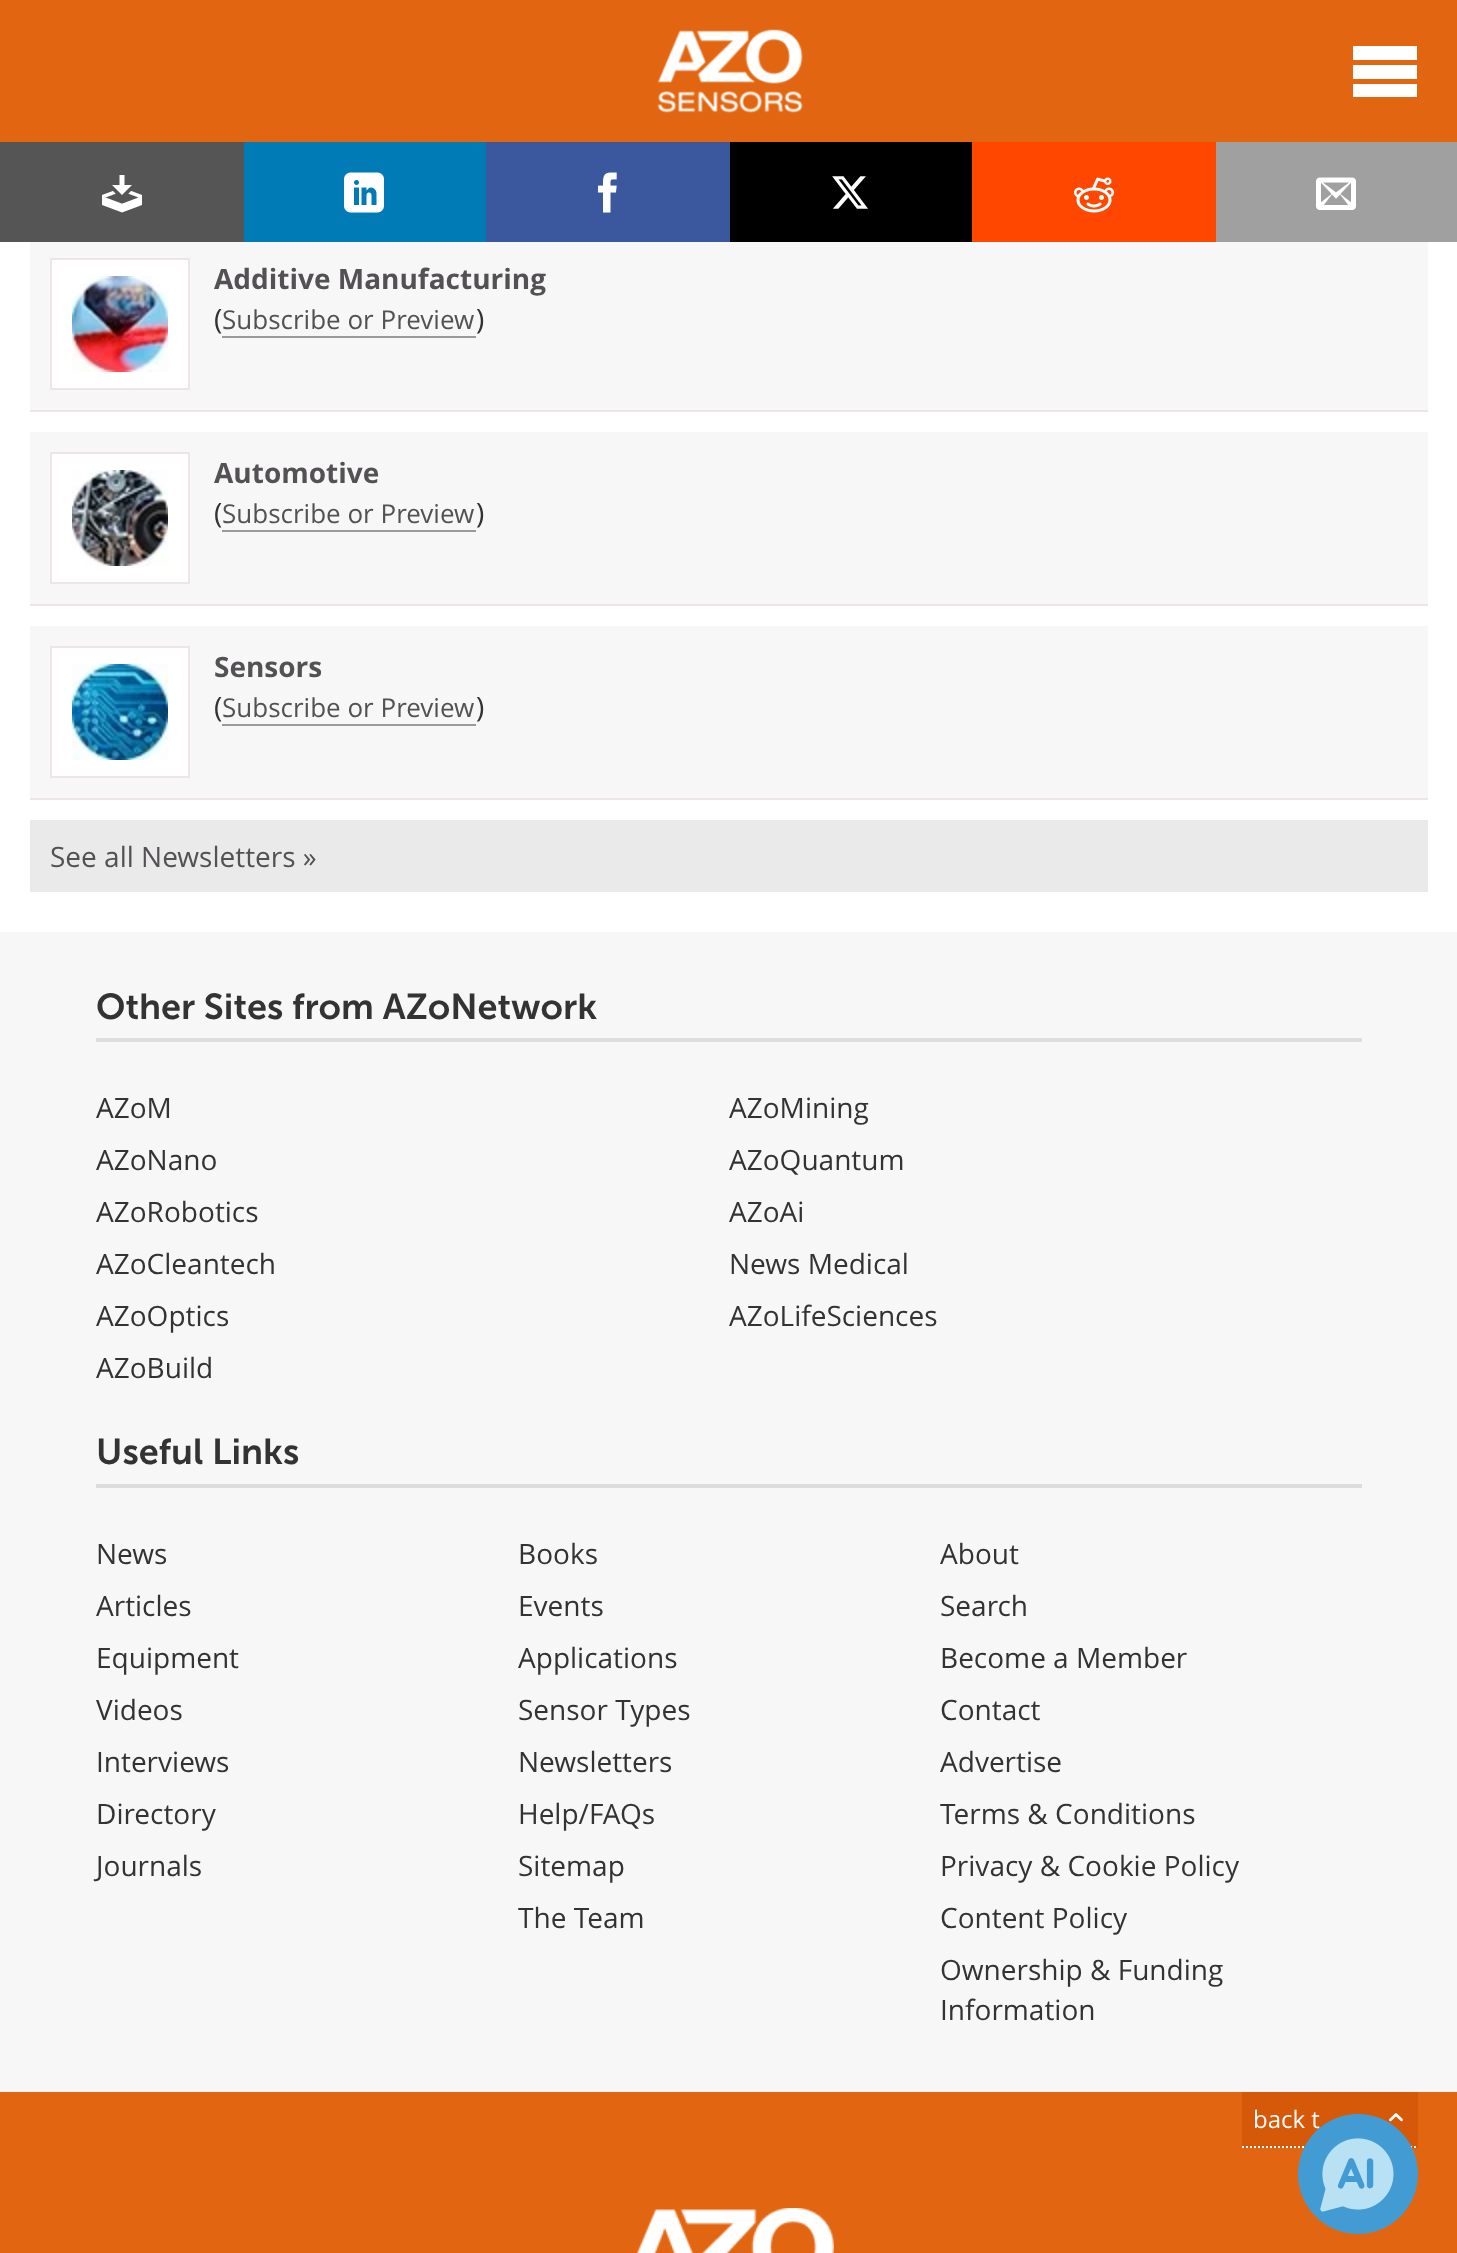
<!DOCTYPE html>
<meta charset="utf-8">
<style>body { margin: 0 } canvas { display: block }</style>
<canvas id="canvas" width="1457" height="2253"></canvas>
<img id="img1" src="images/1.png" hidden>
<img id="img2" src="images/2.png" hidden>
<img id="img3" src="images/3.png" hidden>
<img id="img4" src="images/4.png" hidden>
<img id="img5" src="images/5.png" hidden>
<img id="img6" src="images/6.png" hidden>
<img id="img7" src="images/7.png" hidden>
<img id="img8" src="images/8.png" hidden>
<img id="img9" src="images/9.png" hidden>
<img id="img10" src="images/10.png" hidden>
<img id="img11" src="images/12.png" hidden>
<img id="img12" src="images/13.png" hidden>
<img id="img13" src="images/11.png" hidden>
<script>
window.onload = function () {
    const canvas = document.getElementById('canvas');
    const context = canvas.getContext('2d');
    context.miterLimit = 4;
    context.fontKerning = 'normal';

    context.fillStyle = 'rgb(255, 255, 255)';
    context.fillRect(0, 0, 1457, 2253);
    context.fillStyle = 'rgb(226, 102, 17)';
    context.fillRect(0, 0, 1457, 142);
    context.drawImage(document.getElementById('img1'), 657, 29, 146, 84);
    context.fillStyle = 'rgb(255, 255, 255)';
    context.beginPath();
    context.moveTo(1353, 46);
    context.lineTo(1417, 46);
    context.lineTo(1417, 60);
    context.lineTo(1353, 60);
    context.closePath();
    context.moveTo(1353, 65);
    context.lineTo(1417, 65);
    context.lineTo(1417, 79);
    context.lineTo(1353, 79);
    context.closePath();
    context.moveTo(1353, 84);
    context.lineTo(1417, 84);
    context.lineTo(1417, 97);
    context.lineTo(1353, 97);
    context.closePath();
    context.fill();
    context.fillStyle = 'rgb(85, 85, 85)';
    context.fillRect(0, 142, 244, 100);
    context.drawImage(document.getElementById('img2'), 102, 175, 40, 38);
    context.fillStyle = 'rgb(0, 123, 182)';
    context.fillRect(244, 142, 242, 100);
    context.drawImage(document.getElementById('img3'), 344, 172, 40, 41);
    context.fillStyle = 'rgb(59, 87, 157)';
    context.fillRect(486, 142, 244, 100);
    context.drawImage(document.getElementById('img4'), 598, 172, 19, 41);
    context.fillStyle = 'rgb(0, 0, 0)';
    context.fillRect(730, 142, 242, 100);
    context.drawImage(document.getElementById('img5'), 832, 176, 36, 33);
    context.fillStyle = 'rgb(255, 71, 0)';
    context.fillRect(972, 142, 244, 100);
    context.drawImage(document.getElementById('img6'), 1074, 177, 40, 36);
    context.fillStyle = 'rgb(160, 160, 160)';
    context.fillRect(1216, 142, 241, 100);
    context.drawImage(document.getElementById('img7'), 1316, 177, 40, 33);
    context.fillStyle = 'rgb(247, 247, 247)';
    context.fillRect(30, 242, 1398, 168);
    context.fillStyle = 'rgb(236, 230, 230)';
    context.fillRect(30, 410, 1398, 2);
    context.fillStyle = 'rgb(255, 255, 255)';
    context.beginPath();
    context.rect(51, 259, 138, 130);
    context.fill();
    context.strokeStyle = 'rgb(236, 230, 230)';
    context.lineWidth = 2;
    context.stroke();
    context.drawImage(document.getElementById('img8'), 72, 276, 96, 96);
    context.fillStyle = 'rgb(154, 154, 154)';
    context.fillRect(222, 336, 254, 2);
    context.fillStyle = 'rgb(247, 247, 247)';
    context.fillRect(30, 432, 1398, 172);
    context.fillStyle = 'rgb(236, 230, 230)';
    context.fillRect(30, 604, 1398, 2);
    context.fillStyle = 'rgb(255, 255, 255)';
    context.beginPath();
    context.rect(51, 453, 138, 130);
    context.fill();
    context.stroke();
    context.drawImage(document.getElementById('img9'), 72, 470, 96, 96);
    context.fillStyle = 'rgb(154, 154, 154)';
    context.fillRect(222, 530, 254, 2);
    context.fillStyle = 'rgb(247, 247, 247)';
    context.fillRect(30, 626, 1398, 172);
    context.fillStyle = 'rgb(236, 230, 230)';
    context.fillRect(30, 798, 1398, 2);
    context.fillStyle = 'rgb(255, 255, 255)';
    context.beginPath();
    context.rect(51, 647, 138, 130);
    context.fill();
    context.stroke();
    context.drawImage(document.getElementById('img10'), 72, 664, 96, 96);
    context.fillStyle = 'rgb(154, 154, 154)';
    context.fillRect(222, 724, 254, 2);
    context.fillStyle = 'rgb(234, 234, 234)';
    context.fillRect(30, 820, 1398, 72);
    context.fillStyle = 'rgb(247, 247, 247)';
    context.fillRect(0, 932, 1457, 1160);
    context.fillStyle = 'rgb(221, 221, 221)';
    context.fillRect(96, 1038, 1266, 4);
    context.fillRect(96, 1484, 1266, 4);
    context.fillStyle = 'rgb(226, 102, 17)';
    context.fillRect(0, 2092, 1457, 161);
    context.fillStyle = 'rgb(213, 89, 8)';
    context.fillRect(1242, 2092, 176, 56);
    context.beginPath();
    context.moveTo(1242, 2147);
    context.lineTo(1418, 2147);
    context.strokeStyle = 'rgb(255, 255, 255)';
    context.setLineDash([2, 2]);
    context.stroke();
    context.drawImage(document.getElementById('img11'), 1389, 2113, 14, 9);
    context.drawImage(document.getElementById('img12'), 636, 2208, 198, 45);
    context.font = 'bold 28px Open Sans';
    context.fillStyle = 'rgb(84, 81, 84)';
    context.fillText('Additive Manufacturing', 214, 289);
    context.font = '28px Open Sans';
    context.fillStyle = 'rgb(51, 51, 51)';
    context.fillText('(', 214, 329);
    context.font = '26px Open Sans';
    context.fillStyle = 'rgb(84, 81, 84)';
    context.fillText('Subscribe or Preview', 222, 329);
    context.font = '28px Open Sans';
    context.fillStyle = 'rgb(51, 51, 51)';
    context.fillText(')', 476, 329);
    context.font = 'bold 28px Open Sans';
    context.fillStyle = 'rgb(84, 81, 84)';
    context.fillText('Automotive', 214, 483);
    context.font = '28px Open Sans';
    context.fillStyle = 'rgb(51, 51, 51)';
    context.fillText('(', 214, 523);
    context.font = '26px Open Sans';
    context.fillStyle = 'rgb(84, 81, 84)';
    context.fillText('Subscribe or Preview', 222, 523);
    context.font = '28px Open Sans';
    context.fillStyle = 'rgb(51, 51, 51)';
    context.fillText(')', 476, 523);
    context.font = 'bold 28px Open Sans';
    context.fillStyle = 'rgb(84, 81, 84)';
    context.fillText('Sensors', 214, 677);
    context.font = '28px Open Sans';
    context.fillStyle = 'rgb(51, 51, 51)';
    context.fillText('(', 214, 717);
    context.font = '26px Open Sans';
    context.fillStyle = 'rgb(84, 81, 84)';
    context.fillText('Subscribe or Preview', 222, 717);
    context.font = '28px Open Sans';
    context.fillStyle = 'rgb(51, 51, 51)';
    context.fillText(')', 476, 717);
    context.fillStyle = 'rgb(84, 81, 84)';
    context.fillText('See all Newsletters »', 50, 867);
    context.font = '600 36px "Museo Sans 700"';
    context.fillStyle = 'rgb(51, 51, 51)';
    context.fillText('Other Sites from AZoNetwork', 96, 1019);
    context.font = '28px Open Sans';
    context.fillText('AZoM', 96, 1118);
    context.fillText('AZoNano', 96, 1170);
    context.fillText('AZoRobotics', 96, 1222);
    context.fillText('AZoCleantech', 96, 1274);
    context.fillText('AZoOptics', 96, 1326);
    context.fillText('AZoBuild', 96, 1378);
    context.fillText('AZoMining', 729, 1118);
    context.fillText('AZoQuantum', 729, 1170);
    context.fillText('AZoAi', 729, 1222);
    context.fillText('News Medical', 729, 1274);
    context.fillText('AZoLifeSciences', 729, 1326);
    context.font = '600 36px "Museo Sans 700"';
    context.fillText('Useful Links', 96, 1464);
    context.font = '28px Open Sans';
    context.fillText('News', 96, 1564);
    context.fillText('Articles', 96, 1616);
    context.fillText('Equipment', 96, 1668);
    context.fillText('Videos', 96, 1720);
    context.fillText('Interviews', 96, 1772);
    context.fillText('Directory', 96, 1824);
    context.fillText('Journals', 96, 1876);
    context.fillText('Books', 518, 1564);
    context.fillText('Events', 518, 1616);
    context.fillText('Applications', 518, 1668);
    context.fillText('Sensor Types', 518, 1720);
    context.fillText('Newsletters', 518, 1772);
    context.fillText('Help/FAQs', 518, 1824);
    context.fillText('Sitemap', 518, 1876);
    context.fillText('The Team', 518, 1928);
    context.fillText('About', 940, 1564);
    context.fillText('Search', 940, 1616);
    context.fillText('Become a Member', 940, 1668);
    context.fillText('Contact', 940, 1720);
    context.fillText('Advertise', 940, 1772);
    context.fillText('Terms & Conditions', 940, 1824);
    context.fillText('Privacy & Cookie Policy', 940, 1876);
    context.fillText('Content Policy', 940, 1928);
    context.fillText('Ownership & Funding', 940, 1980);
    context.fillText('Information', 940, 2020);
    context.font = '24px Open Sans';
    context.fillStyle = 'rgb(255, 255, 255)';
    context.fillText('back t', 1253, 2128);
    context.drawImage(document.getElementById('img13'), 1298, 2114, 120, 120);
};
</script>
